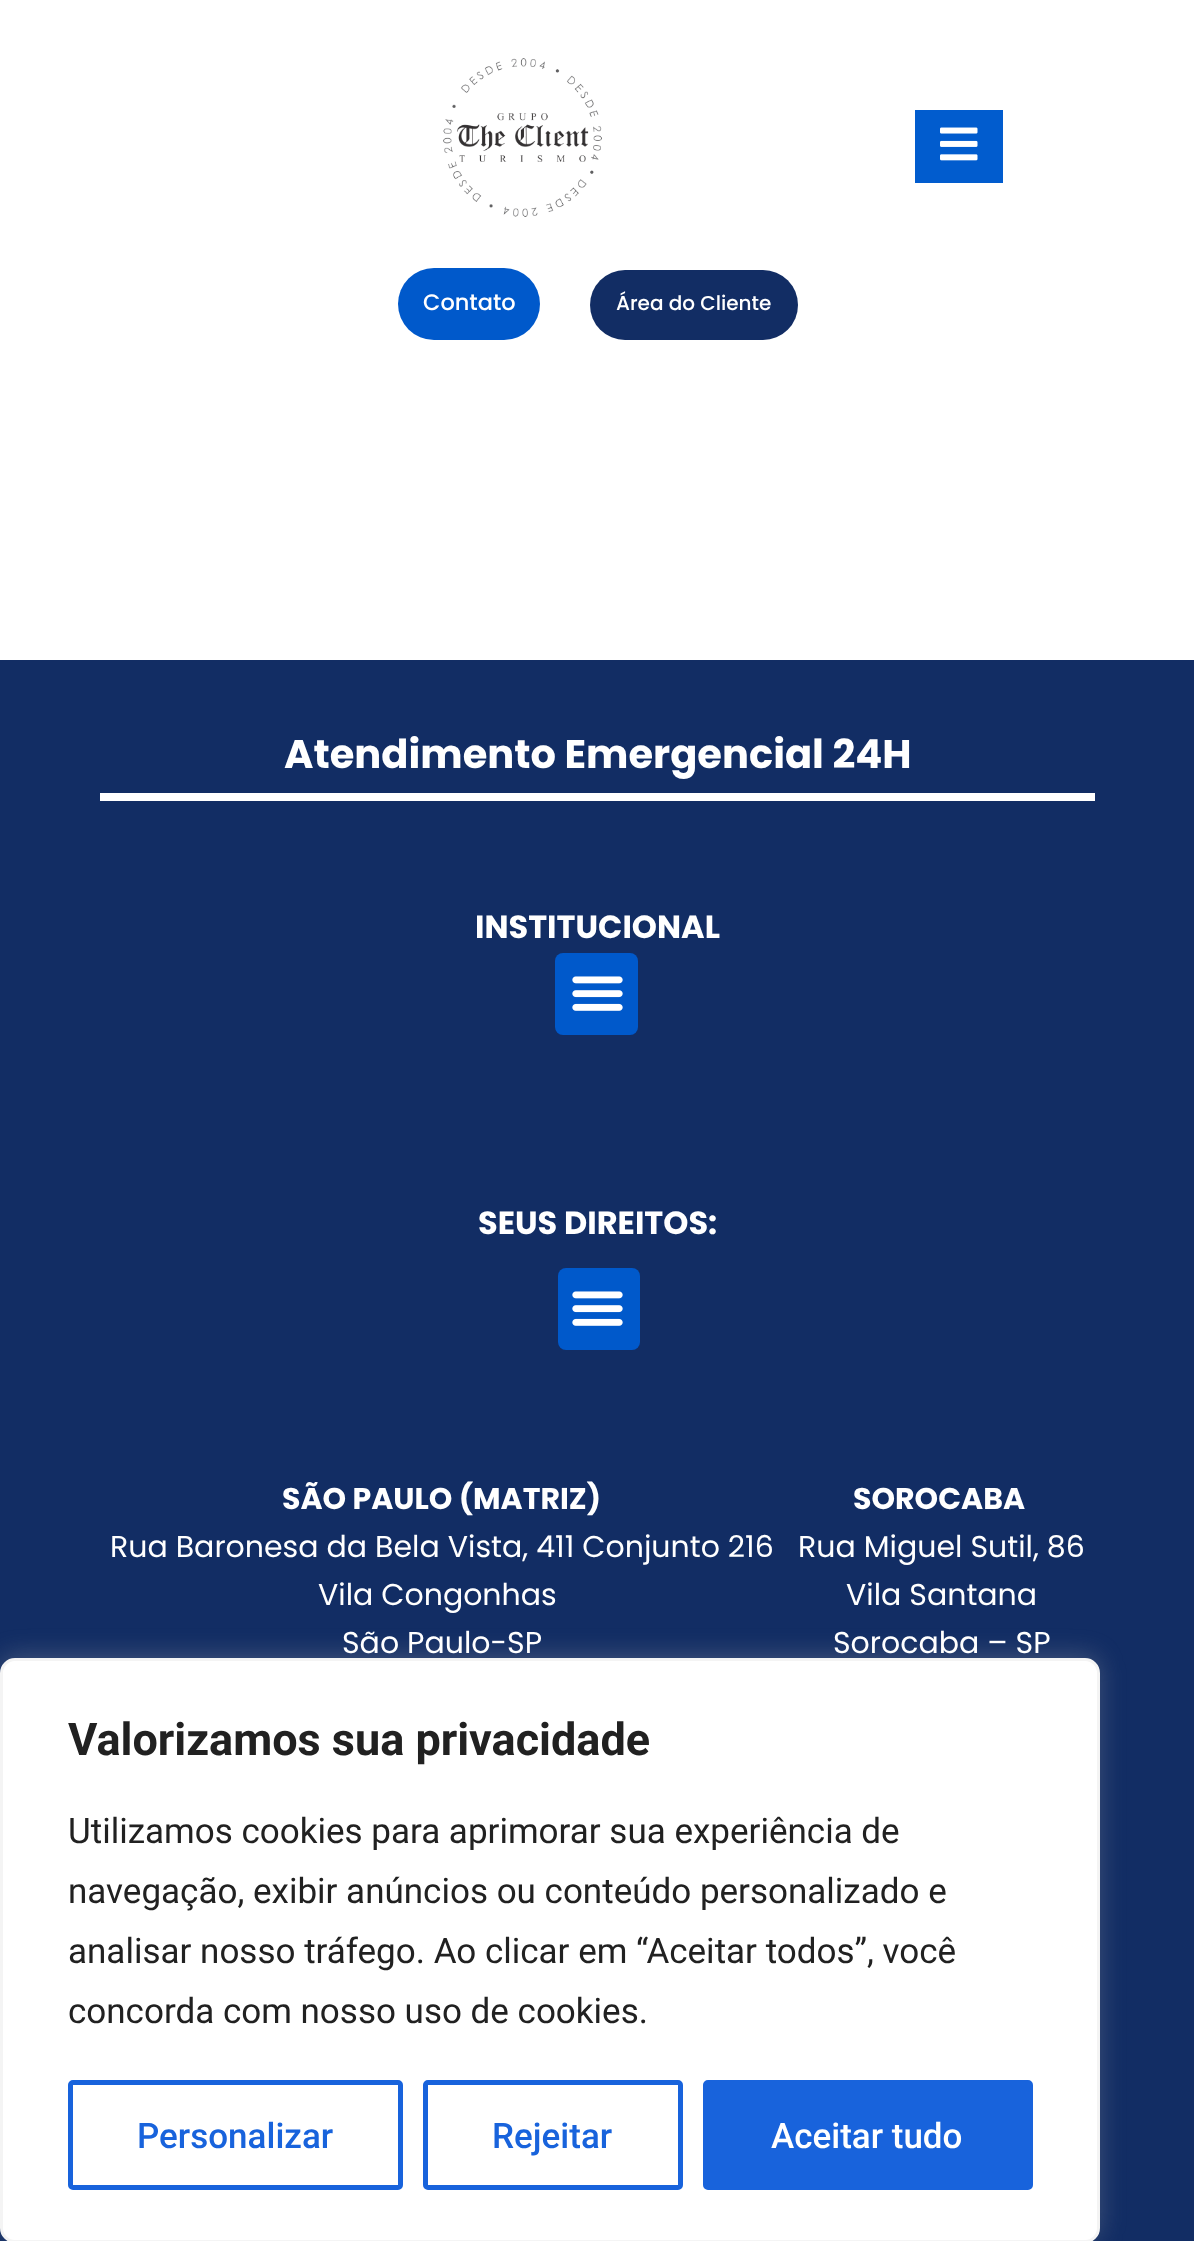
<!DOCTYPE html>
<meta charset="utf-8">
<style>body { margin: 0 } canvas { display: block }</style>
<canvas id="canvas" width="1194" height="2241"></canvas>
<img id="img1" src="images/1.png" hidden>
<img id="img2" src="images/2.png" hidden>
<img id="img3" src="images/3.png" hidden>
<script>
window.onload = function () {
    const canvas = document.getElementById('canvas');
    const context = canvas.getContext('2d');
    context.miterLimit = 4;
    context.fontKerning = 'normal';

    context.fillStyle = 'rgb(255, 255, 255)';
    context.fillRect(0, 0, 1194, 2241);
    context.drawImage(document.getElementById('img1'), 443, 58, 159, 159);
    context.fillStyle = 'rgb(1, 92, 206)';
    context.fillRect(915, 110, 88, 73);
    context.drawImage(document.getElementById('img2'), 940, 127, 38, 34);
    context.fillStyle = 'rgb(0, 89, 203)';
    context.beginPath();
    context.roundRect(398, 268, 142, 72, 36);
    context.fill();
    context.fillStyle = 'rgb(18, 45, 100)';
    context.beginPath();
    context.roundRect(590, 270, 208, 70, 35);
    context.fill();
    context.fillRect(0, 660, 1194, 1581);
    context.fillStyle = 'rgb(255, 255, 255)';
    context.fillRect(100, 793, 995, 8);
    context.fillStyle = 'rgb(0, 89, 203)';
    context.beginPath();
    context.roundRect(555, 953, 83, 82, 8);
    context.fill();
    context.drawImage(document.getElementById('img3'), 572, 976, 51, 35);
    context.beginPath();
    context.roundRect(558, 1268, 82, 82, 8);
    context.fill();
    context.drawImage(document.getElementById('img3'), 572, 1291, 51, 35);
    context.fillStyle = 'rgba(172, 171, 171, 0.3)';
    context.filter = 'blur(12.5px)';
    context.beginPath();
    context.roundRect(0, 1655, 1100, 585, 15);
    context.fill();
    context.filter = 'none';
    context.fillStyle = 'rgb(255, 255, 255)';
    context.beginPath();
    context.roundRect(1.5, 1659.5, 1097, 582, 13.5);
    context.fill();
    context.strokeStyle = 'rgb(244, 244, 244)';
    context.lineWidth = 3;
    context.stroke();
    context.beginPath();
    context.roundRect(70.5, 2082.5, 330, 105, 2.5);
    context.strokeStyle = 'rgb(24, 99, 220)';
    context.lineWidth = 5;
    context.stroke();
    context.beginPath();
    context.roundRect(425.5, 2082.5, 255, 105, 2.5);
    context.stroke();
    context.fillStyle = 'rgb(24, 99, 220)';
    context.beginPath();
    context.roundRect(705.5, 2082.5, 325, 105, 2.5);
    context.fill();
    context.stroke();
    context.font = '500 22.5px Poppins';
    context.fillStyle = 'rgb(255, 255, 255)';
    context.fillText('Contato', 423, 310);
    context.font = '500 20px Poppins';
    context.fillText('Área do Cliente', 616, 310);
    context.font = 'bold 40px Poppins';
    context.fillText('Atendimento Emergencial 24H', 284, 768);
    context.font = 'bold 32px Poppins';
    context.fillText('INSTITUCIONAL', 475, 938);
    context.fillText('SEUS DIREITOS:', 478, 1234);
    context.font = 'bold 30px Poppins';
    context.fillText('SÃO PAULO (MATRIZ)', 282, 1509);
    context.font = '30px Poppins';
    context.fillText('Rua Baronesa da Bela Vista, 411 Conjunto 216', 110, 1557);
    context.fillText('Vila Congonhas', 318, 1605);
    context.fillText('São Paulo-SP', 342, 1653);
    context.font = 'bold 30px Poppins';
    context.fillText('SOROCABA', 853, 1509);
    context.font = '30px Poppins';
    context.fillText('Rua Miguel Sutil, 86', 798, 1557);
    context.fillText('Vila Santana', 846, 1605);
    context.fillText('Sorocaba – SP', 833, 1653);
    context.font = 'bold 45px Roboto';
    context.fillStyle = 'rgb(33, 33, 33)';
    context.fillText('Valorizamos sua privacidade', 68, 1755);
    context.font = '35px Roboto';
    context.fillText('Utilizamos cookies para aprimorar sua experiência de', 68, 1843);
    context.fillText('navegação, exibir anúncios ou conteúdo personalizado e', 68, 1903);
    context.fillText('analisar nosso tráfego. Ao clicar em “Aceitar todos”, você', 68, 1963);
    context.fillText('concorda com nosso uso de cookies.', 68, 2023);
    context.font = '500 35px Roboto';
    context.fillStyle = 'rgb(24, 99, 220)';
    context.fillText('Personalizar', 137, 2148);
    context.fillText('Rejeitar', 492, 2148);
    context.fillStyle = 'rgb(255, 255, 255)';
    context.fillText('Aceitar tudo', 771, 2148);
};
</script>
